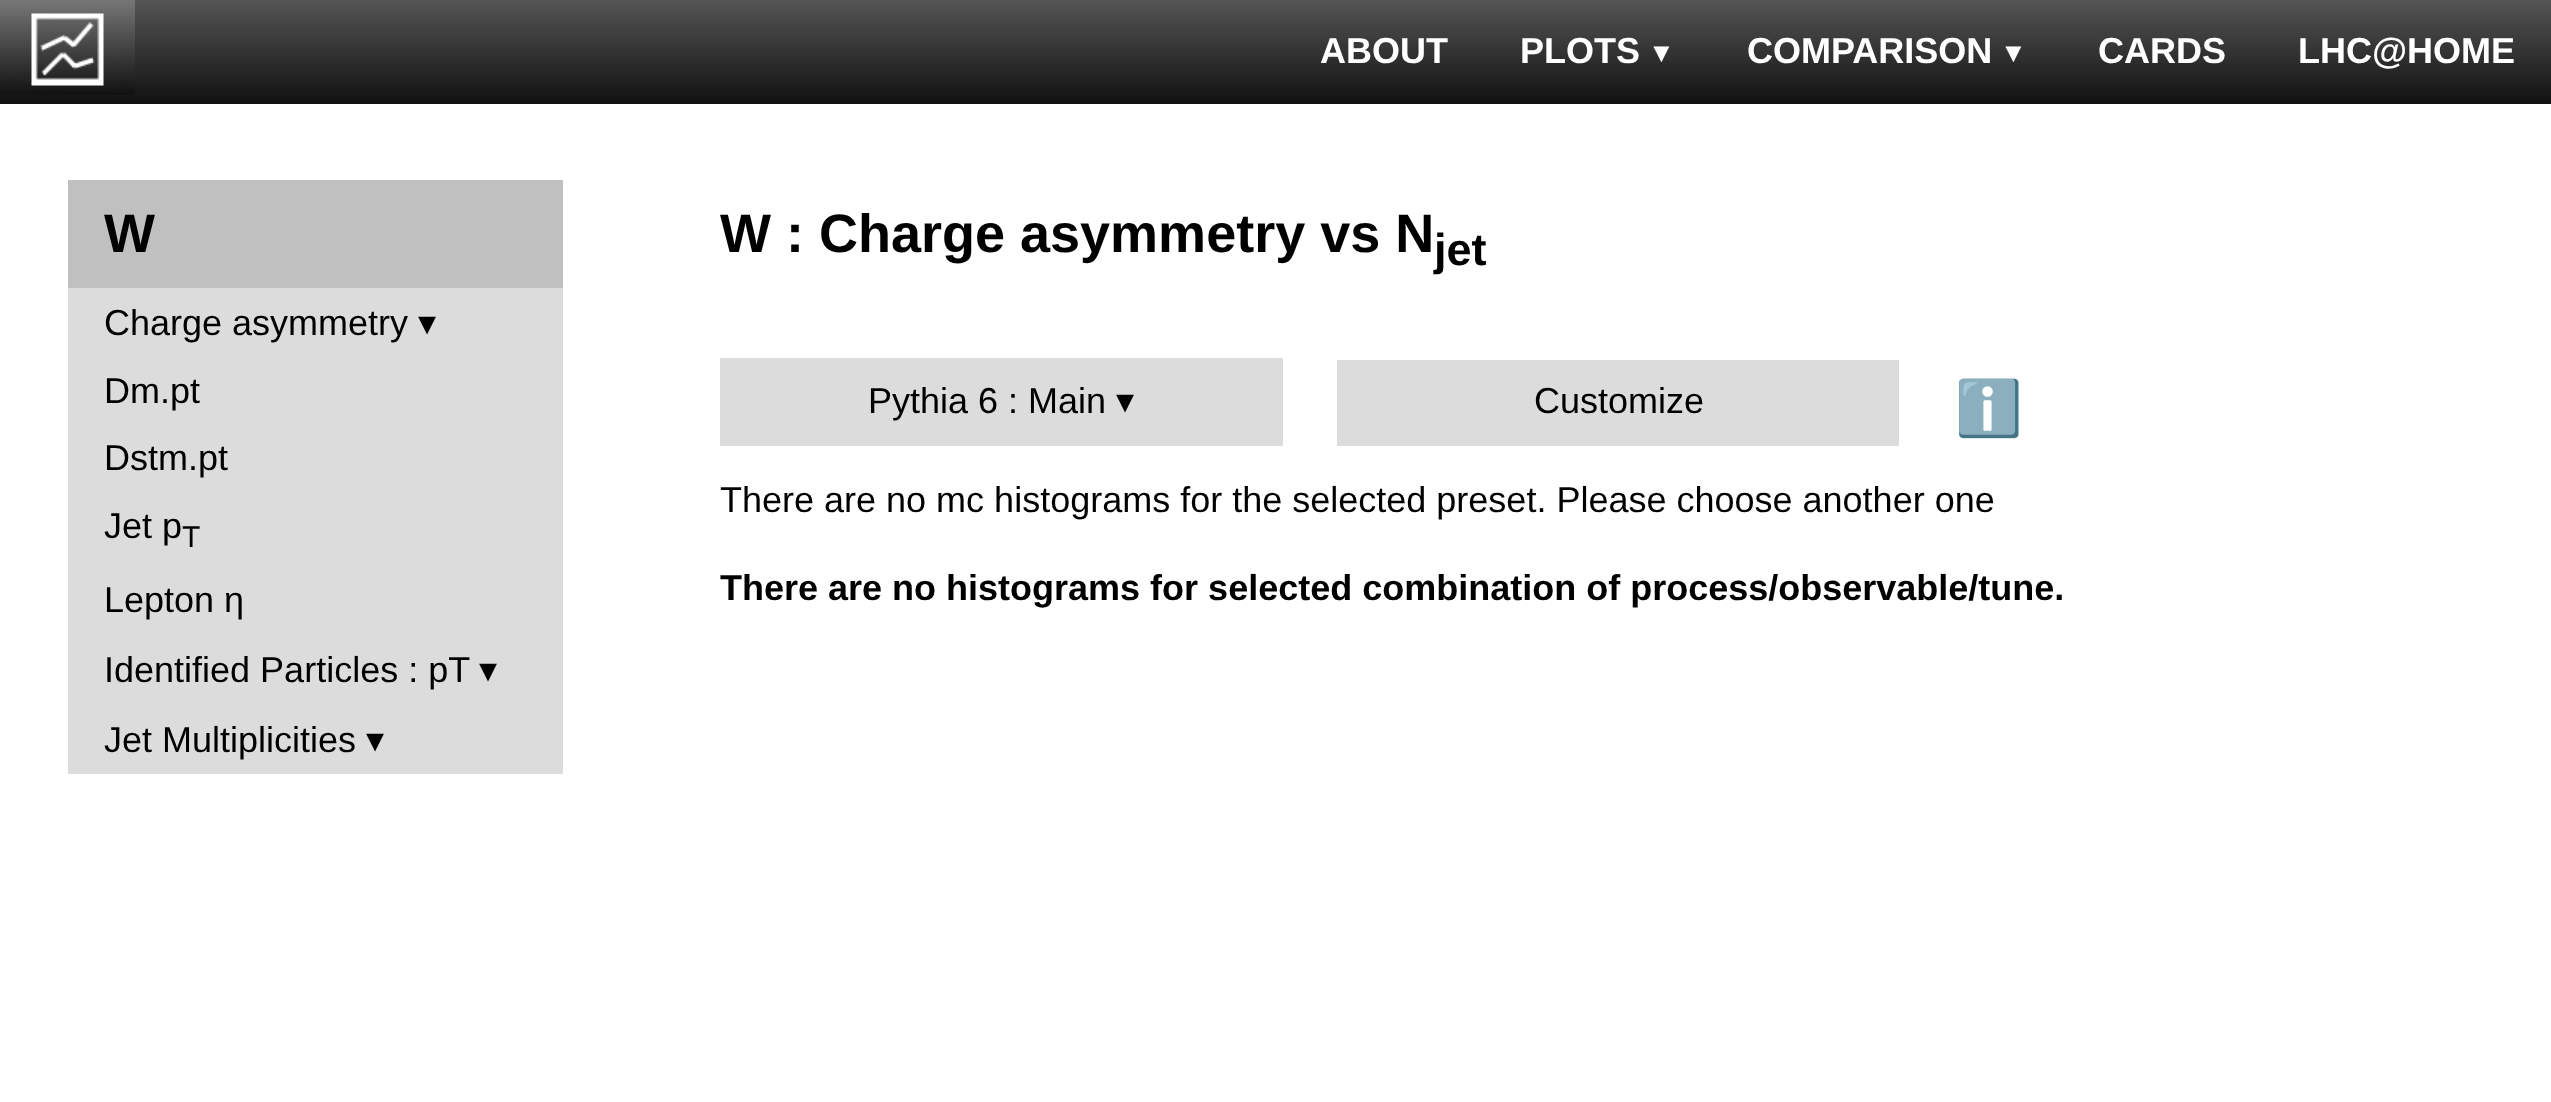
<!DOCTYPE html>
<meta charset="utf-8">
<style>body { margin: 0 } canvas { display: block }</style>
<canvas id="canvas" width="2551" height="1102"></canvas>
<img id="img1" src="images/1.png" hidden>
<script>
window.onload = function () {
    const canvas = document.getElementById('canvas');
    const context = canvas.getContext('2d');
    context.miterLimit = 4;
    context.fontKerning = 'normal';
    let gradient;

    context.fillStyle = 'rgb(255, 255, 255)';
    context.fillRect(0, 0, 2551, 1102);
    gradient = context.createLinearGradient(1276, 0, 1276, 104);
    gradient.addColorStop(0, 'rgb(85, 85, 85)');
    gradient.addColorStop(1, 'rgb(17, 17, 17)');
    context.fillStyle = gradient;
    context.fillRect(0, 0, 2551, 104);
    gradient = context.createLinearGradient(67, 0, 68, 95);
    gradient.addColorStop(0, 'rgb(119, 119, 119)');
    gradient.addColorStop(1, 'rgb(17, 17, 17)');
    context.fillStyle = gradient;
    context.fillRect(0, 0, 135, 95);
    context.drawImage(document.getElementById('img1'), 31, 13, 73, 73);
    context.fillStyle = 'rgb(192, 192, 192)';
    context.fillRect(68, 180, 495, 108);
    context.fillStyle = 'rgb(220, 220, 220)';
    context.fillRect(68, 288, 495, 486);
    context.fillRect(720, 358, 563, 88);
    context.fillRect(1337, 360, 562, 86);
    context.font = 'bold 36px Liberation Sans';
    context.fillStyle = 'rgb(255, 255, 255)';
    context.fillText('ABOUT', 1320, 63);
    context.fillText('PLOTS', 1520, 63);
    context.font = 'bold 27px Liberation Sans';
    context.fillText('▼', 1648, 62);
    context.font = 'bold 36px Liberation Sans';
    context.fillText('COMPARISON', 1747, 63);
    context.font = 'bold 27px Liberation Sans';
    context.fillText('▼', 2000, 62);
    context.font = 'bold 36px Liberation Sans';
    context.fillText('CARDS', 2098, 63);
    context.fillText('LHC@HOME', 2298, 63);
    context.font = 'bold 54px Liberation Sans';
    context.fillStyle = 'rgb(0, 0, 0)';
    context.fillText('W', 104, 252);
    context.font = '36px Liberation Sans';
    context.fillText('Charge asymmetry', 104, 335);
    context.font = '36px DejaVu Sans';
    context.fillText('▾', 418, 335);
    context.font = '36px Liberation Sans';
    context.fillText('Dm.pt', 104, 403);
    context.fillText('Dstm.pt', 104, 470);
    context.fillText('Jet p', 104, 538);
    context.font = '30px Liberation Sans';
    context.fillText('T', 182, 547);
    context.font = '36px Liberation Sans';
    context.fillText('Lepton η', 104, 612);
    context.fillText('Identified Particles : pT', 104, 682);
    context.font = '36px DejaVu Sans';
    context.fillText('▾', 479, 682);
    context.font = '36px Liberation Sans';
    context.fillText('Jet Multiplicities', 104, 752);
    context.font = '36px DejaVu Sans';
    context.fillText('▾', 366, 752);
    context.font = 'bold 54px Liberation Sans';
    context.fillText('W : Charge asymmetry vs N', 720, 252);
    context.font = 'bold 45px Liberation Sans';
    context.fillText('jet', 1434, 265);
    context.font = '36px Liberation Sans';
    context.fillText('Pythia 6 : Main', 868, 413);
    context.font = '36px DejaVu Sans';
    context.fillText('▾', 1116, 413);
    context.font = '36px Liberation Sans';
    context.fillText('Customize', 1534, 413);
    context.font = '54px Noto Color Emoji';
    context.fillText('ℹ️', 1955, 427);
    context.font = '36px Liberation Sans';
    context.fillText('There are no mc histograms for the selected preset. Please choose another one', 720, 512);
    context.font = 'bold 36px Liberation Sans';
    context.fillText('There are no histograms for selected combination of process/observable/tune.', 720, 600);
};
</script>
